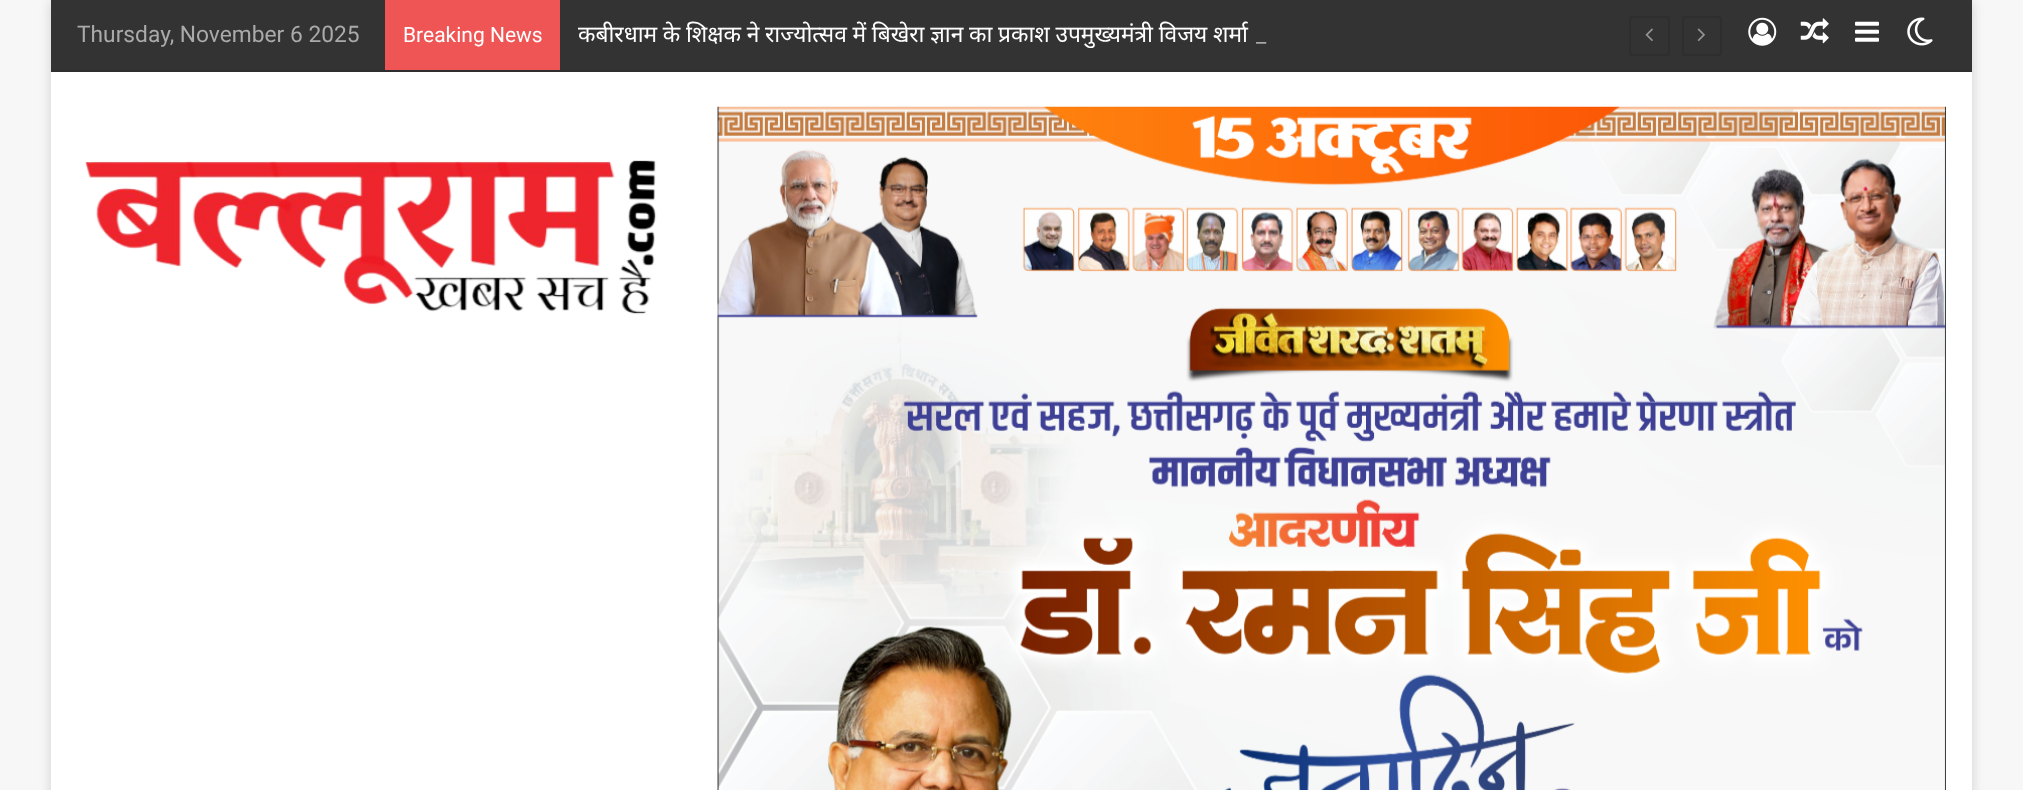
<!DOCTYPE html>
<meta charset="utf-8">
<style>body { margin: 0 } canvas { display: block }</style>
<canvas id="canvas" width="2023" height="790"></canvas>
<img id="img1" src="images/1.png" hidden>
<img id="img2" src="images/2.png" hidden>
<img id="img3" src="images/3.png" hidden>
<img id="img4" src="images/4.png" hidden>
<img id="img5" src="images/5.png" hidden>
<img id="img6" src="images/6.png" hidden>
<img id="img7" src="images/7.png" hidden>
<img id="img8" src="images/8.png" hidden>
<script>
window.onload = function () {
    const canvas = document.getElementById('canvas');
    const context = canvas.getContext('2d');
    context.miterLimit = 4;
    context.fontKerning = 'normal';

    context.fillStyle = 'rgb(247, 247, 247)';
    context.fillRect(0, 0, 2023, 790);
    context.fillStyle = 'rgba(171, 171, 171, 0.5)';
    context.filter = 'blur(6px)';
    context.beginPath();
    context.rect(51, 2, 1921, 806);
    context.fill();
    context.filter = 'none';
    context.fillStyle = 'rgb(255, 255, 255)';
    context.fillRect(51, 72, 1921, 718);
    context.fillStyle = 'rgb(51, 51, 51)';
    context.fillRect(51, 0, 1921, 70);
    context.fillStyle = 'rgb(46, 46, 46)';
    context.fillRect(51, 70, 1921, 2);
    context.fillStyle = 'rgb(240, 85, 85)';
    context.fillRect(385, 0, 175, 70);
    context.beginPath();
    context.roundRect(1630, 17, 39, 38, 3);
    context.strokeStyle = 'rgb(46, 46, 46)';
    context.lineWidth = 2;
    context.stroke();
    context.drawImage(document.getElementById('img1'), 1645, 28, 8, 14);
    context.beginPath();
    context.roundRect(1683, 17, 38, 38, 3);
    context.stroke();
    context.drawImage(document.getElementById('img2'), 1697, 28, 8, 14);
    context.drawImage(document.getElementById('img3'), 1748, 17, 29, 29);
    context.drawImage(document.getElementById('img4'), 1800, 18, 29, 26);
    context.drawImage(document.getElementById('img5'), 1855, 21, 24, 21);
    context.drawImage(document.getElementById('img6'), 1907, 17, 26, 29);
    context.drawImage(document.getElementById('img7'), 85, 160, 572, 155);
    context.drawImage(document.getElementById('img8'), 717, 106, 1229, 684);
    context.font = '22.75px Roboto';
    context.fillStyle = 'rgb(170, 170, 170)';
    context.fillText('Thursday, November 6 2025', 77, 42);
    context.font = '21px Roboto';
    context.fillStyle = 'rgb(255, 255, 255)';
    context.fillText('Breaking News', 403, 42);
    context.wordSpacing = '-0.25px';
    context.font = '22.75px Noto Sans';
    context.fillText('कबीरधाम के शिक्षक ने राज्योत्सव में बिखेरा ज्ञान का प्रकाश उपमुख्यमंत्री विजय शर्मा', 578, 42);
    context.wordSpacing = '0px';
    context.font = '22.75px Roboto';
    context.fillStyle = 'rgb(170, 170, 170)';
    context.fillText('_', 1256, 42);
};
</script>
